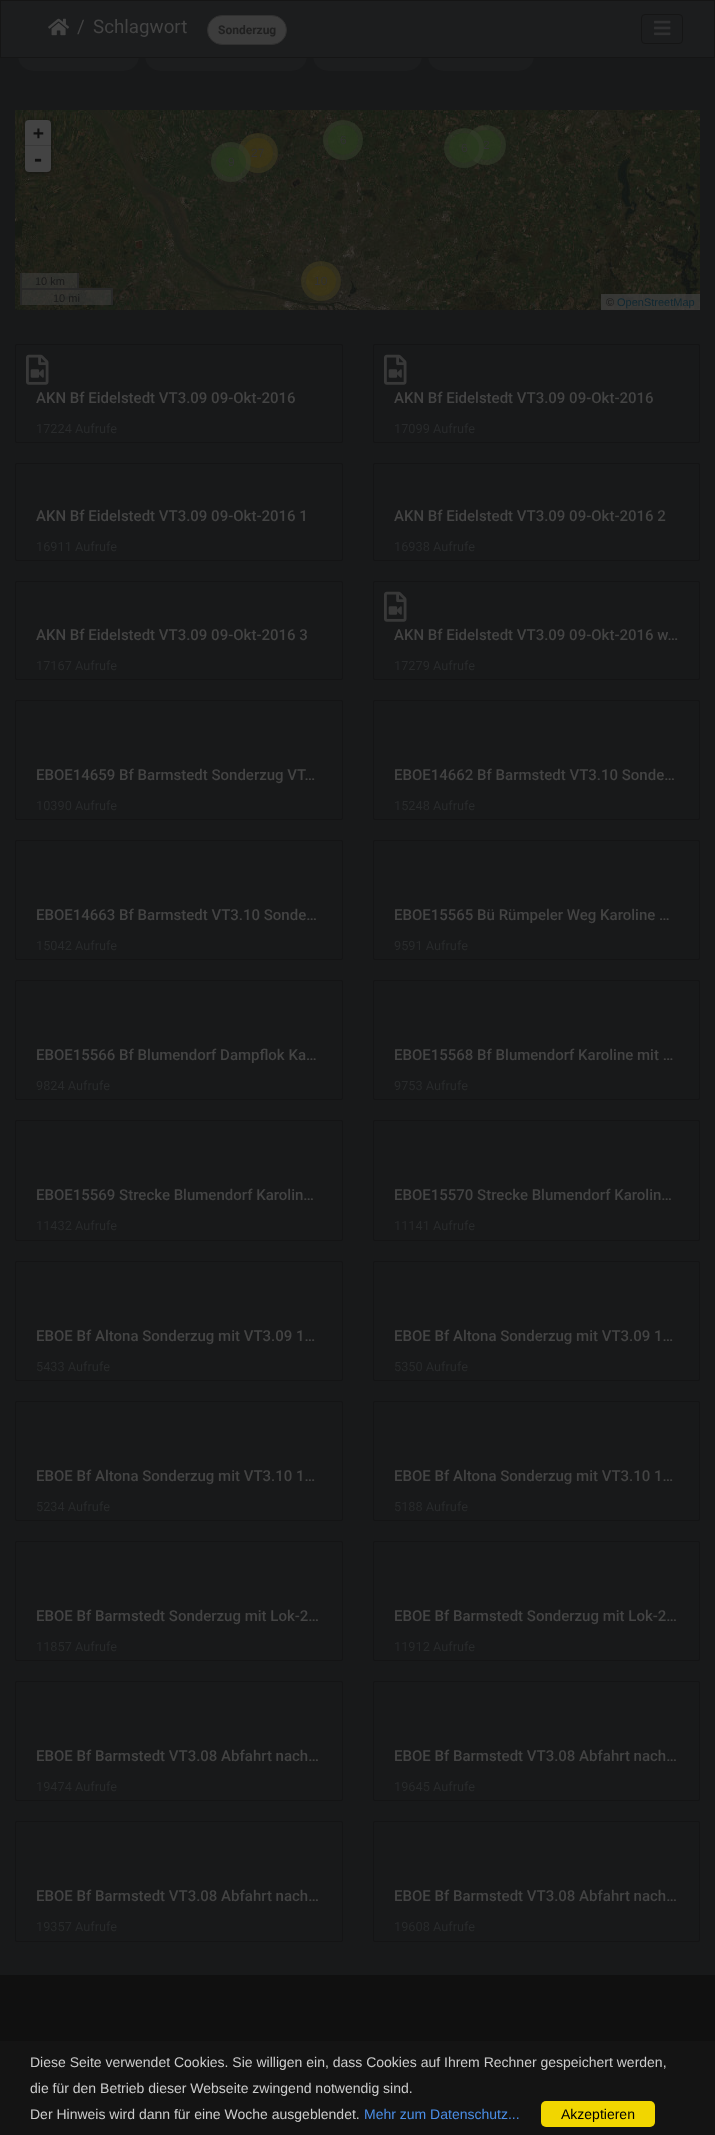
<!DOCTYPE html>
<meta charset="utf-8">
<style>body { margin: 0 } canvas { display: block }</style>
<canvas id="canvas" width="715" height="2135"></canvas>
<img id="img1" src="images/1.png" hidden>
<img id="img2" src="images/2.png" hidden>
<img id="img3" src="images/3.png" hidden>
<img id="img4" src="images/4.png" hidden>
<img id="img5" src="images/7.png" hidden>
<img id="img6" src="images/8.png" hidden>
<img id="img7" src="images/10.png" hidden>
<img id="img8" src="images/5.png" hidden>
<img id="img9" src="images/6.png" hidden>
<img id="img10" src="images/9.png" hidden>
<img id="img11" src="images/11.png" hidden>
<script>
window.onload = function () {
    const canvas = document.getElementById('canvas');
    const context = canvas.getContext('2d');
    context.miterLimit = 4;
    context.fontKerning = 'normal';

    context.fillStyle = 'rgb(24, 25, 26)';
    context.fillRect(0, 0, 715, 2135);
    context.fillStyle = 'rgb(28, 29, 30)';
    context.beginPath();
    context.roundRect(18, 41, 121, 30, 15);
    context.fill();
    context.beginPath();
    context.roundRect(145, 41, 162, 30, 15);
    context.fill();
    context.beginPath();
    context.roundRect(313, 41, 109, 30, 15);
    context.fill();
    context.beginPath();
    context.roundRect(428, 41, 106, 30, 15);
    context.fill();
    context.beginPath();
    context.rect(0.5, 0.5, 714, 57);
    context.fill();
    context.strokeStyle = 'rgb(21, 21, 21)';
    context.stroke();
    context.drawImage(document.getElementById('img1'), 48, 18, 21, 18);
    context.fillStyle = 'rgb(60, 60, 60)';
    context.beginPath();
    context.roundRect(207.5, 15.5, 79, 29, 14.5);
    context.fill();
    context.strokeStyle = 'rgb(48, 48, 48)';
    context.stroke();
    context.beginPath();
    context.roundRect(641.5, 14.5, 41, 29, 3.5);
    context.strokeStyle = 'rgb(21, 21, 21)';
    context.stroke();
    context.drawImage(document.getElementById('img2'), 654, 20, 17, 16);
    context.drawImage(document.getElementById('img3'), 15, 110, 23, 67);
    context.drawImage(document.getElementById('img4'), 38, 110, 256, 67);
    context.drawImage(document.getElementById('img5'), 15, 177, 23, 133);
    context.drawImage(document.getElementById('img6'), 38, 177, 256, 133);
    context.fillStyle = 'rgba(16, 16, 16, 0.65)';
    context.filter = 'blur(2.5px)';
    context.beginPath();
    context.roundRect(25, 121, 26, 52, 4);
    context.fill();
    context.filter = 'none';
    context.fillStyle = 'rgb(67, 67, 67)';
    context.beginPath();
    context.roundRect(25, 120, 26, 26, [4, 4, 0, 0]);
    context.fill();
    context.fillStyle = 'rgb(57, 57, 57)';
    context.fillRect(25, 145, 26, 1);
    context.fillStyle = 'rgb(67, 67, 67)';
    context.beginPath();
    context.roundRect(25, 146, 26, 26, [0, 0, 4, 4]);
    context.fill();
    context.fillStyle = 'rgba(67, 67, 67, 0.5)';
    context.fillRect(22, 273, 55, 15);
    context.fillStyle = 'rgb(40, 40, 40)';
    context.fillRect(77, 273, 2, 17);
    context.fillRect(20, 273, 2, 17);
    context.fillStyle = 'rgba(67, 67, 67, 0.5)';
    context.fillRect(22, 290, 89, 15);
    context.fillStyle = 'rgb(40, 40, 40)';
    context.fillRect(20, 288, 93, 2);
    context.fillRect(111, 288, 2, 17);
    context.fillRect(20, 288, 2, 17);
    context.drawImage(document.getElementById('img7'), 550, 177, 150, 133);
    context.fillStyle = 'rgba(67, 67, 67, 0.7)';
    context.fillRect(601, 294, 99, 16);
    context.drawImage(document.getElementById('img8'), 294, 110, 256, 67);
    context.drawImage(document.getElementById('img9'), 550, 110, 150, 67);
    context.drawImage(document.getElementById('img10'), 294, 177, 256, 133);
    context.fillStyle = 'rgba(64, 58, 33, 0.6)';
    context.beginPath();
    context.arc(258, 153, 20, 0, 2 * Math.PI);
    context.fill();
    context.fillStyle = 'rgba(64, 55, 18, 0.6)';
    context.beginPath();
    context.arc(258, 153, 15, 0, 2 * Math.PI);
    context.fill();
    context.fillStyle = 'rgba(52, 61, 44, 0.6)';
    context.beginPath();
    context.arc(343, 140, 20, 0, 2 * Math.PI);
    context.fill();
    context.fillStyle = 'rgba(38, 57, 27, 0.6)';
    context.beginPath();
    context.arc(343, 140, 15, 0, 2 * Math.PI);
    context.fill();
    context.fillStyle = 'rgba(52, 61, 44, 0.6)';
    context.beginPath();
    context.arc(486, 145, 20, 0, 2 * Math.PI);
    context.fill();
    context.fillStyle = 'rgba(38, 57, 27, 0.6)';
    context.beginPath();
    context.arc(486, 145, 15, 0, 2 * Math.PI);
    context.fill();
    context.fillStyle = 'rgba(52, 61, 44, 0.6)';
    context.beginPath();
    context.arc(231, 162, 20, 0, 2 * Math.PI);
    context.fill();
    context.fillStyle = 'rgba(38, 57, 27, 0.6)';
    context.beginPath();
    context.arc(231, 162, 15, 0, 2 * Math.PI);
    context.fill();
    context.fillStyle = 'rgba(64, 58, 33, 0.6)';
    context.beginPath();
    context.arc(321, 281, 20, 0, 2 * Math.PI);
    context.fill();
    context.fillStyle = 'rgba(64, 55, 18, 0.6)';
    context.beginPath();
    context.arc(321, 281, 15, 0, 2 * Math.PI);
    context.fill();
    context.beginPath();
    context.roundRect(15.5, 344.5, 327, 98, 1.5);
    context.strokeStyle = 'rgb(20, 20, 21)';
    context.stroke();
    context.drawImage(document.getElementById('img11'), 26, 354, 23, 31);
    context.beginPath();
    context.roundRect(373.5, 344.5, 326, 98, 1.5);
    context.stroke();
    context.drawImage(document.getElementById('img11'), 384, 354, 23, 31);
    context.beginPath();
    context.roundRect(15.5, 463.5, 327, 97, 1.5);
    context.stroke();
    context.beginPath();
    context.roundRect(373.5, 463.5, 326, 97, 1.5);
    context.stroke();
    context.beginPath();
    context.roundRect(15.5, 581.5, 327, 98, 1.5);
    context.stroke();
    context.beginPath();
    context.roundRect(373.5, 581.5, 326, 98, 1.5);
    context.stroke();
    context.drawImage(document.getElementById('img11'), 384, 591, 23, 31);
    context.beginPath();
    context.roundRect(15.5, 700.5, 327, 119, 1.5);
    context.stroke();
    context.beginPath();
    context.roundRect(373.5, 700.5, 326, 119, 1.5);
    context.stroke();
    context.beginPath();
    context.roundRect(15.5, 840.5, 327, 119, 1.5);
    context.stroke();
    context.beginPath();
    context.roundRect(373.5, 840.5, 326, 119, 1.5);
    context.stroke();
    context.beginPath();
    context.roundRect(15.5, 980.5, 327, 119, 1.5);
    context.stroke();
    context.beginPath();
    context.roundRect(373.5, 980.5, 326, 119, 1.5);
    context.stroke();
    context.beginPath();
    context.roundRect(15.5, 1120.5, 327, 120, 1.5);
    context.stroke();
    context.beginPath();
    context.roundRect(373.5, 1120.5, 326, 120, 1.5);
    context.stroke();
    context.beginPath();
    context.roundRect(15.5, 1261.5, 327, 119, 1.5);
    context.stroke();
    context.beginPath();
    context.roundRect(373.5, 1261.5, 326, 119, 1.5);
    context.stroke();
    context.beginPath();
    context.roundRect(15.5, 1401.5, 327, 119, 1.5);
    context.stroke();
    context.beginPath();
    context.roundRect(373.5, 1401.5, 326, 119, 1.5);
    context.stroke();
    context.beginPath();
    context.roundRect(15.5, 1541.5, 327, 119, 1.5);
    context.stroke();
    context.beginPath();
    context.roundRect(373.5, 1541.5, 326, 119, 1.5);
    context.stroke();
    context.beginPath();
    context.roundRect(15.5, 1681.5, 327, 119, 1.5);
    context.stroke();
    context.beginPath();
    context.roundRect(373.5, 1681.5, 326, 119, 1.5);
    context.stroke();
    context.beginPath();
    context.roundRect(15.5, 1821.5, 327, 120, 1.5);
    context.stroke();
    context.beginPath();
    context.roundRect(373.5, 1821.5, 326, 120, 1.5);
    context.stroke();
    context.fillStyle = 'rgb(20, 20, 20)';
    context.fillRect(0, 2041, 715, 94);
    context.fillStyle = 'rgb(241, 214, 0)';
    context.beginPath();
    context.roundRect(541, 2101, 114, 26, 5);
    context.fill();
    context.fillStyle = 'rgb(16, 16, 16)';
    context.fillRect(0, 1975, 715, 66);
    context.font = '18.75px Roboto';
    context.fillStyle = 'rgb(67, 67, 67)';
    context.fillText('/', 77, 33);
    context.fillText('Schlagwort', 93, 33);
    context.font = 'bold 12px Roboto';
    context.fillStyle = 'rgb(32, 32, 32)';
    context.fillText('Sonderzug', 218, 34);
    context.font = 'bold 18px DejaVu Sans Mono';
    context.fillStyle = 'rgb(16, 16, 16)';
    context.fillText('+', 33, 139);
    context.font = 'bold 20px DejaVu Sans Mono';
    context.fillText('-', 32, 166);
    context.font = '11px Liberation Sans';
    context.fillStyle = 'rgb(26, 26, 26)';
    context.fillText('10 km', 35, 285);
    context.fillText('10 mi', 53, 302);
    context.fillText('©', 606, 306);
    context.fillStyle = 'rgb(16, 40, 50)';
    context.fillText('OpenStreetMap', 617, 306);
    context.font = '12px Liberation Sans';
    context.fillStyle = 'rgb(50, 50, 50)';
    context.fillText('27', 251, 157);
    context.fillText('6', 340, 144);
    context.fillText('2', 483, 149);
    context.fillStyle = 'rgba(52, 61, 44, 0.6)';
    context.beginPath();
    context.arc(464, 148, 20, 0, 2 * Math.PI);
    context.fill();
    context.fillStyle = 'rgba(38, 57, 27, 0.6)';
    context.beginPath();
    context.arc(464, 148, 15, 0, 2 * Math.PI);
    context.fill();
    context.fillStyle = 'rgb(50, 50, 50)';
    context.fillText('6', 461, 152);
    context.fillText('9', 228, 166);
    context.fillText('10', 314, 285);
    context.font = '500 15px Roboto';
    context.fillStyle = 'rgb(67, 67, 67)';
    context.fillText('AKN Bf Eidelstedt VT3.09 09-Okt-2016', 36, 403);
    context.font = '12.75px Roboto';
    context.fillStyle = 'rgb(40, 42, 43)';
    context.fillText('17224 Aufrufe', 36, 433);
    context.font = '500 15px Roboto';
    context.fillStyle = 'rgb(67, 67, 67)';
    context.fillText('AKN Bf Eidelstedt VT3.09 09-Okt-2016', 394, 403);
    context.font = '12.75px Roboto';
    context.fillStyle = 'rgb(40, 42, 43)';
    context.fillText('17099 Aufrufe', 394, 433);
    context.font = '500 15px Roboto';
    context.fillStyle = 'rgb(67, 67, 67)';
    context.fillText('AKN Bf Eidelstedt VT3.09 09-Okt-2016 1', 36, 521);
    context.font = '12.75px Roboto';
    context.fillStyle = 'rgb(40, 42, 43)';
    context.fillText('16911 Aufrufe', 36, 551);
    context.font = '500 15px Roboto';
    context.fillStyle = 'rgb(67, 67, 67)';
    context.fillText('AKN Bf Eidelstedt VT3.09 09-Okt-2016 2', 394, 521);
    context.font = '12.75px Roboto';
    context.fillStyle = 'rgb(40, 42, 43)';
    context.fillText('16938 Aufrufe', 394, 551);
    context.font = '500 15px Roboto';
    context.fillStyle = 'rgb(67, 67, 67)';
    context.fillText('AKN Bf Eidelstedt VT3.09 09-Okt-2016 3', 36, 640);
    context.font = '12.75px Roboto';
    context.fillStyle = 'rgb(40, 42, 43)';
    context.fillText('17167 Aufrufe', 36, 670);
    context.font = '500 15px Roboto';
    context.fillStyle = 'rgb(67, 67, 67)';
    context.fillText('AKN Bf Eidelstedt VT3.09 09-Okt-2016 w…', 394, 640);
    context.font = '12.75px Roboto';
    context.fillStyle = 'rgb(40, 42, 43)';
    context.fillText('17279 Aufrufe', 394, 670);
    context.font = '500 15px Roboto';
    context.fillStyle = 'rgb(67, 67, 67)';
    context.fillText('EBOE14659 Bf Barmstedt Sonderzug VT…', 36, 780);
    context.font = '12.75px Roboto';
    context.fillStyle = 'rgb(40, 42, 43)';
    context.fillText('10390 Aufrufe', 36, 810);
    context.font = '500 15px Roboto';
    context.fillStyle = 'rgb(67, 67, 67)';
    context.fillText('EBOE14662 Bf Barmstedt VT3.10 Sonde…', 394, 780);
    context.font = '12.75px Roboto';
    context.fillStyle = 'rgb(40, 42, 43)';
    context.fillText('15248 Aufrufe', 394, 810);
    context.font = '500 15px Roboto';
    context.fillStyle = 'rgb(67, 67, 67)';
    context.fillText('EBOE14663 Bf Barmstedt VT3.10 Sonde…', 36, 920);
    context.font = '12.75px Roboto';
    context.fillStyle = 'rgb(40, 42, 43)';
    context.fillText('15042 Aufrufe', 36, 950);
    context.font = '500 15px Roboto';
    context.fillStyle = 'rgb(67, 67, 67)';
    context.fillText('EBOE15565 Bü Rümpeler Weg Karoline …', 394, 920);
    context.font = '12.75px Roboto';
    context.fillStyle = 'rgb(40, 42, 43)';
    context.fillText('9591 Aufrufe', 394, 950);
    context.font = '500 15px Roboto';
    context.fillStyle = 'rgb(67, 67, 67)';
    context.fillText('EBOE15566 Bf Blumendorf Dampflok Ka…', 36, 1060);
    context.font = '12.75px Roboto';
    context.fillStyle = 'rgb(40, 42, 43)';
    context.fillText('9824 Aufrufe', 36, 1090);
    context.font = '500 15px Roboto';
    context.fillStyle = 'rgb(67, 67, 67)';
    context.fillText('EBOE15568 Bf Blumendorf Karoline mit …', 394, 1060);
    context.font = '12.75px Roboto';
    context.fillStyle = 'rgb(40, 42, 43)';
    context.fillText('9753 Aufrufe', 394, 1090);
    context.font = '500 15px Roboto';
    context.fillStyle = 'rgb(67, 67, 67)';
    context.fillText('EBOE15569 Strecke Blumendorf Karolin…', 36, 1200);
    context.font = '12.75px Roboto';
    context.fillStyle = 'rgb(40, 42, 43)';
    context.fillText('11432 Aufrufe', 36, 1230);
    context.font = '500 15px Roboto';
    context.fillStyle = 'rgb(67, 67, 67)';
    context.fillText('EBOE15570 Strecke Blumendorf Karolin…', 394, 1200);
    context.font = '12.75px Roboto';
    context.fillStyle = 'rgb(40, 42, 43)';
    context.fillText('11141 Aufrufe', 394, 1230);
    context.font = '500 15px Roboto';
    context.fillStyle = 'rgb(67, 67, 67)';
    context.fillText('EBOE Bf Altona Sonderzug mit VT3.09 1…', 36, 1341);
    context.font = '12.75px Roboto';
    context.fillStyle = 'rgb(40, 42, 43)';
    context.fillText('5433 Aufrufe', 36, 1371);
    context.font = '500 15px Roboto';
    context.fillStyle = 'rgb(67, 67, 67)';
    context.fillText('EBOE Bf Altona Sonderzug mit VT3.09 1…', 394, 1341);
    context.font = '12.75px Roboto';
    context.fillStyle = 'rgb(40, 42, 43)';
    context.fillText('5350 Aufrufe', 394, 1371);
    context.font = '500 15px Roboto';
    context.fillStyle = 'rgb(67, 67, 67)';
    context.fillText('EBOE Bf Altona Sonderzug mit VT3.10 1…', 36, 1481);
    context.font = '12.75px Roboto';
    context.fillStyle = 'rgb(40, 42, 43)';
    context.fillText('5234 Aufrufe', 36, 1511);
    context.font = '500 15px Roboto';
    context.fillStyle = 'rgb(67, 67, 67)';
    context.fillText('EBOE Bf Altona Sonderzug mit VT3.10 1…', 394, 1481);
    context.font = '12.75px Roboto';
    context.fillStyle = 'rgb(40, 42, 43)';
    context.fillText('5188 Aufrufe', 394, 1511);
    context.font = '500 15px Roboto';
    context.fillStyle = 'rgb(67, 67, 67)';
    context.fillText('EBOE Bf Barmstedt Sonderzug mit Lok-2…', 36, 1621);
    context.font = '12.75px Roboto';
    context.fillStyle = 'rgb(40, 42, 43)';
    context.fillText('11857 Aufrufe', 36, 1651);
    context.font = '500 15px Roboto';
    context.fillStyle = 'rgb(67, 67, 67)';
    context.fillText('EBOE Bf Barmstedt Sonderzug mit Lok-2…', 394, 1621);
    context.font = '12.75px Roboto';
    context.fillStyle = 'rgb(40, 42, 43)';
    context.fillText('11912 Aufrufe', 394, 1651);
    context.font = '500 15px Roboto';
    context.fillStyle = 'rgb(67, 67, 67)';
    context.fillText('EBOE Bf Barmstedt VT3.08 Abfahrt nach…', 36, 1761);
    context.font = '12.75px Roboto';
    context.fillStyle = 'rgb(40, 42, 43)';
    context.fillText('19474 Aufrufe', 36, 1791);
    context.font = '500 15px Roboto';
    context.fillStyle = 'rgb(67, 67, 67)';
    context.fillText('EBOE Bf Barmstedt VT3.08 Abfahrt nach…', 394, 1761);
    context.font = '12.75px Roboto';
    context.fillStyle = 'rgb(40, 42, 43)';
    context.fillText('19645 Aufrufe', 394, 1791);
    context.font = '500 15px Roboto';
    context.fillStyle = 'rgb(67, 67, 67)';
    context.fillText('EBOE Bf Barmstedt VT3.08 Abfahrt nach…', 36, 1901);
    context.font = '12.75px Roboto';
    context.fillStyle = 'rgb(40, 42, 43)';
    context.fillText('19357 Aufrufe', 36, 1931);
    context.font = '500 15px Roboto';
    context.fillStyle = 'rgb(67, 67, 67)';
    context.fillText('EBOE Bf Barmstedt VT3.08 Abfahrt nach…', 394, 1901);
    context.font = '12.75px Roboto';
    context.fillStyle = 'rgb(40, 42, 43)';
    context.fillText('19608 Aufrufe', 394, 1931);
    context.font = '14px Liberation Sans';
    context.fillStyle = 'rgb(204, 204, 204)';
    context.fillText('Diese Seite verwendet Cookies. Sie willigen ein, dass Cookies auf Ihrem Rechner gespeichert werden,', 30, 2067);
    context.fillText('die für den Betrieb dieser Webseite zwingend notwendig sind.', 30, 2093);
    context.fillText('Der Hinweis wird dann für eine Woche ausgeblendet.', 30, 2119);
    context.fillStyle = 'rgb(75, 142, 231)';
    context.fillText('Mehr zum Datenschutz...', 364, 2119);
    context.fillStyle = 'rgb(0, 0, 0)';
    context.fillText('Akzeptieren', 561, 2119);
};
</script>
